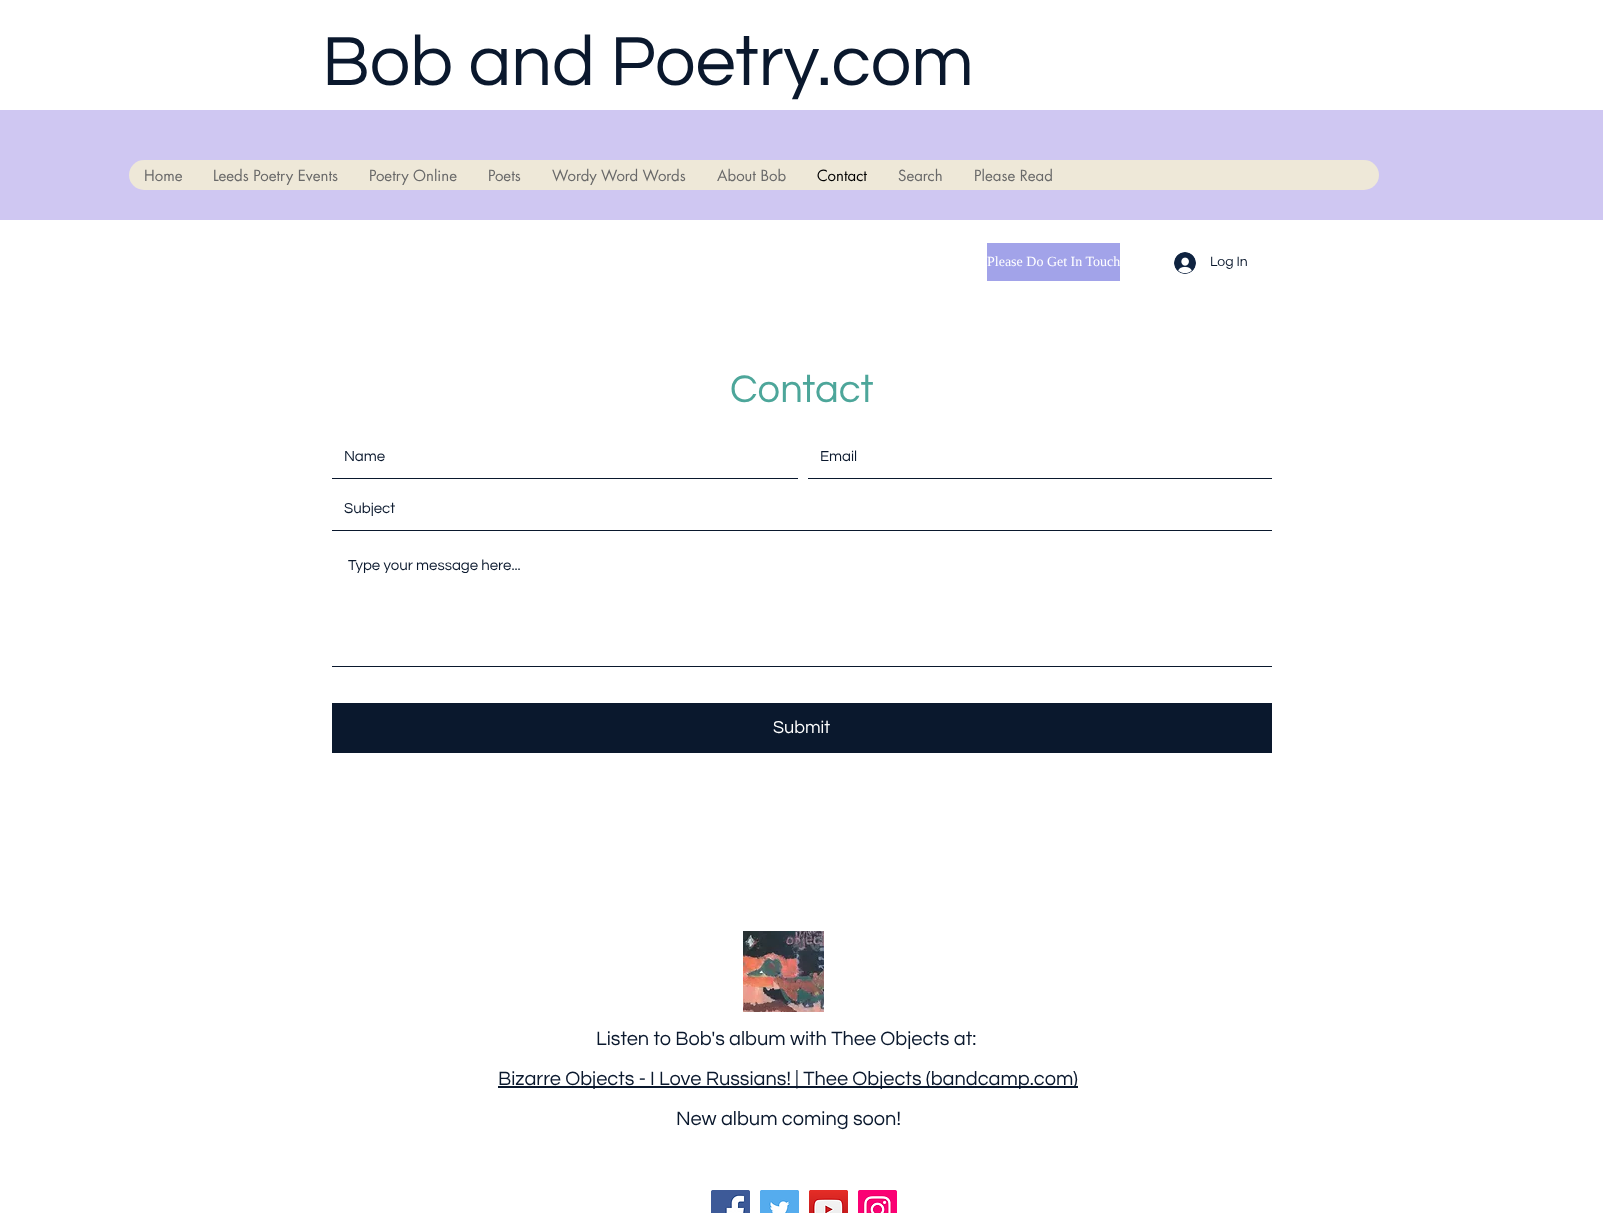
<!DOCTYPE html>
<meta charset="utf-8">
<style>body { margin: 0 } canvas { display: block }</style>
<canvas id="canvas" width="1603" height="1213"></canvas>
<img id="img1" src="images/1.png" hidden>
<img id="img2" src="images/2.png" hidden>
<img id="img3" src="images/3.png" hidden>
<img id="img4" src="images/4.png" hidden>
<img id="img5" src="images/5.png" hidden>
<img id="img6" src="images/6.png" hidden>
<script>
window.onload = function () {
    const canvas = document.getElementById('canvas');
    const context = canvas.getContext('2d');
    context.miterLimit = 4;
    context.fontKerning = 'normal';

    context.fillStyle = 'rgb(255, 255, 255)';
    context.fillRect(0, 0, 1603, 1213);
    context.fillStyle = 'rgb(207, 199, 242)';
    context.fillRect(0, 110, 1603, 110);
    context.fillStyle = 'rgb(238, 232, 216)';
    context.beginPath();
    context.roundRect(129, 160, 1250, 30, 15);
    context.fill();
    context.fillStyle = 'rgb(162, 163, 233)';
    context.fillRect(987, 243, 133, 38);
    context.drawImage(document.getElementById('img1'), 1174, 252, 22, 22);
    context.fillStyle = 'rgb(10, 24, 45)';
    context.fillRect(332, 478, 466, 1);
    context.fillRect(808, 478, 464, 1);
    context.fillRect(332, 530, 940, 1);
    context.fillRect(332, 666, 940, 1);
    context.fillRect(332, 703, 940, 50);
    context.drawImage(document.getElementById('img2'), 743, 931, 81, 81);
    context.fillRect(498, 1086, 580, 2);
    context.drawImage(document.getElementById('img3'), 711, 1190, 39, 23);
    context.drawImage(document.getElementById('img4'), 760, 1190, 39, 23);
    context.drawImage(document.getElementById('img5'), 809, 1190, 39, 23);
    context.drawImage(document.getElementById('img6'), 858, 1190, 39, 23);
    context.font = '72px Questrial';
    context.fillText('Bob and Poetry.com', 322, 85);
    context.font = '15px futura';
    context.fillStyle = 'rgb(105, 105, 105)';
    context.fillText('Home', 144, 181);
    context.fillText('Leeds Poetry Events', 213, 181);
    context.fillText('Poetry Online', 369, 181);
    context.fillText('Poets', 488, 181);
    context.fillText('Wordy Word Words', 552, 181);
    context.fillText('About Bob', 717, 181);
    context.fillStyle = 'rgb(0, 0, 0)';
    context.fillText('Contact', 817, 181);
    context.fillStyle = 'rgb(105, 105, 105)';
    context.fillText('Search', 898, 181);
    context.fillText('Please Read', 974, 181);
    context.font = '14px Liberation Serif';
    context.fillStyle = 'rgb(255, 255, 255)';
    context.fillText('Please Do Get In Touch', 987, 266);
    context.font = '14px Questrial';
    context.fillStyle = 'rgb(10, 24, 45)';
    context.fillText('Log In', 1210, 266);
    context.font = '40px Questrial';
    context.fillStyle = 'rgb(77, 166, 154)';
    context.fillText('Contact', 730, 402);
    context.font = '15px Questrial';
    context.fillStyle = 'rgb(10, 24, 45)';
    context.fillText('Name', 344, 461);
    context.fillText('Email', 820, 461);
    context.fillText('Subject', 344, 513);
    context.fillText('Type your message here...', 348, 570);
    context.font = '18px Questrial';
    context.fillStyle = 'rgb(255, 255, 255)';
    context.fillText('Submit', 773, 733);
    context.font = '20px Questrial';
    context.fillStyle = 'rgb(10, 24, 45)';
    context.fillText('Listen to Bob\'s album with Thee Objects at:', 596, 1045);
    context.fillText('Bizarre Objects - I Love Russians! | Thee Objects (bandcamp.com)', 498, 1085);
    context.fillText('New album coming soon!', 676, 1125);
};
</script>
